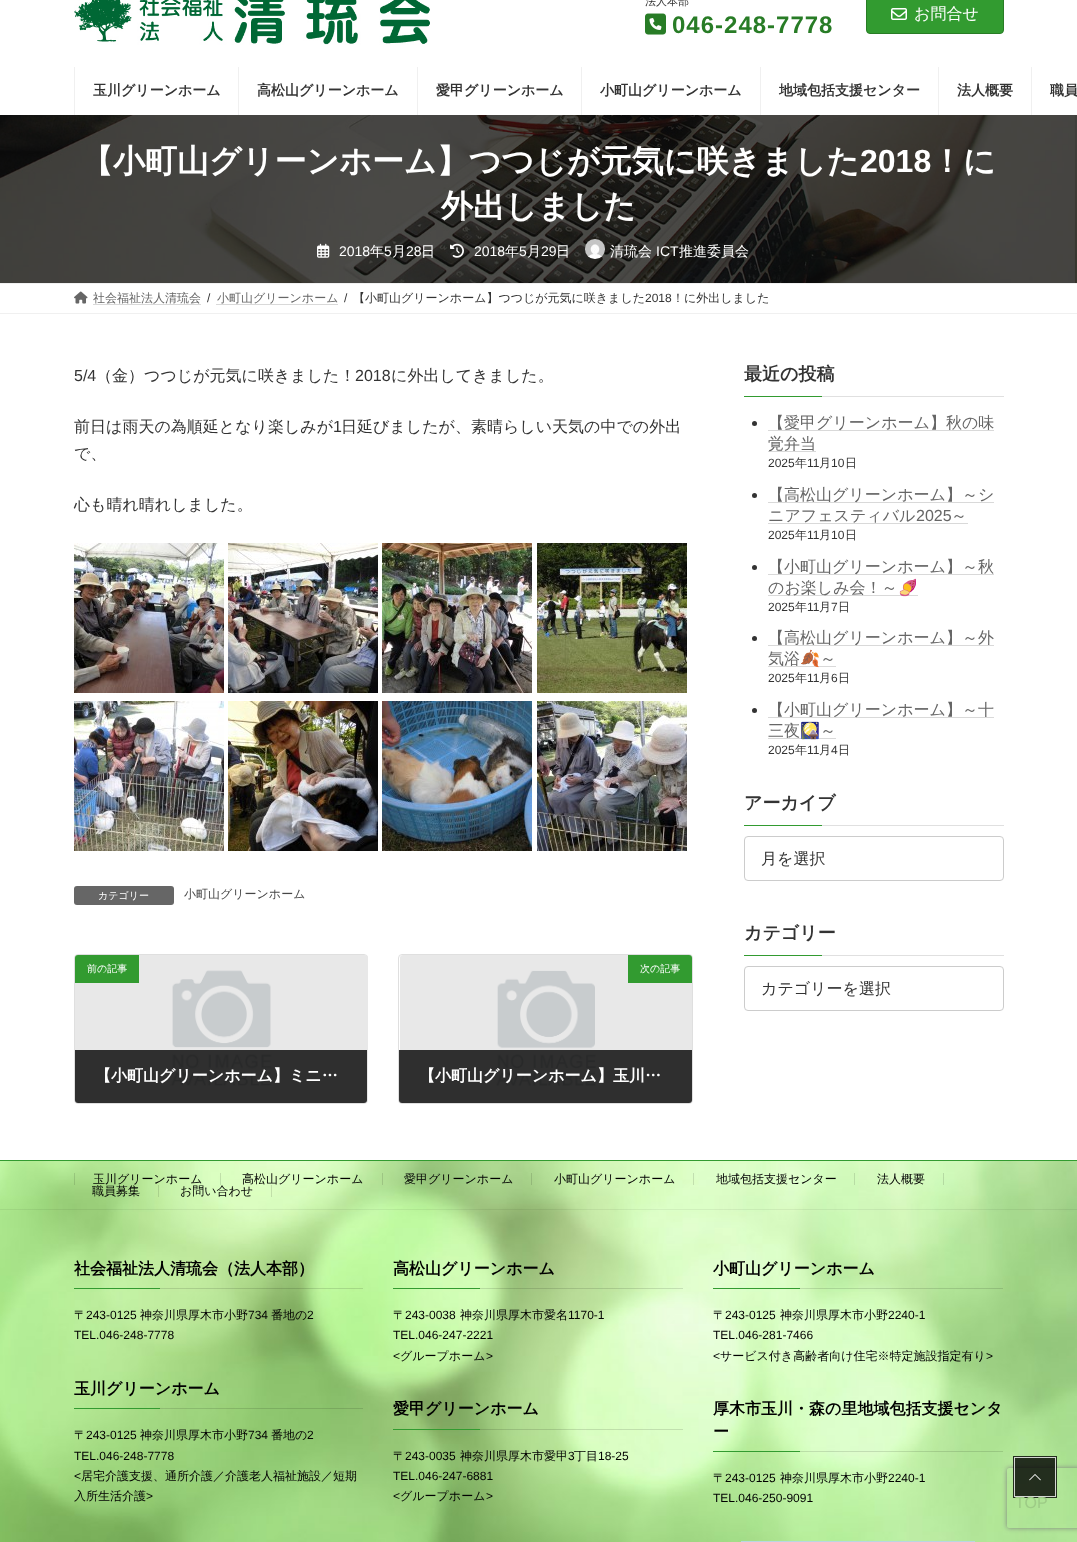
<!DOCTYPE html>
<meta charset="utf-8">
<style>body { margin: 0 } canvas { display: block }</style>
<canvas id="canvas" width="1077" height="1542"></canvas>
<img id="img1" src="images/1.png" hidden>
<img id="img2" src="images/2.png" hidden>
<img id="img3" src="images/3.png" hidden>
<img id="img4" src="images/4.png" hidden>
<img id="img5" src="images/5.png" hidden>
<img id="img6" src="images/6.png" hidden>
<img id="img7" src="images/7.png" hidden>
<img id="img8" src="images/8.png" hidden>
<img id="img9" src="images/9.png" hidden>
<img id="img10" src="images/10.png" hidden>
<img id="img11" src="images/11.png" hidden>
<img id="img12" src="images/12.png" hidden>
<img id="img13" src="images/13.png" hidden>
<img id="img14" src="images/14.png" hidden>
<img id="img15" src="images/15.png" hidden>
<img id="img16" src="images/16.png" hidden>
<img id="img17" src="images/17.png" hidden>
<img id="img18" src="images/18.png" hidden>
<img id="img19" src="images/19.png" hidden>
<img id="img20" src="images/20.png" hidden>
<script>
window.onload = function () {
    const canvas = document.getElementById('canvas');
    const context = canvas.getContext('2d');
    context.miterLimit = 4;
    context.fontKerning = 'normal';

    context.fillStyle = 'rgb(255, 255, 255)';
    context.fillRect(0, 0, 1077, 1542);
    context.drawImage(document.getElementById('img1'), 74, 0, 356, 45);
    context.drawImage(document.getElementById('img2'), 645, 13, 21, 22);
    context.fillStyle = 'rgb(50, 155, 48)';
    context.beginPath();
    context.roundRect(866.5, -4.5, 137, 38, 3.5);
    context.fill();
    context.strokeStyle = 'rgb(40, 124, 38)';
    context.stroke();
    context.drawImage(document.getElementById('img3'), 891, 8, 16, 12);
    context.fillStyle = 'rgb(240, 240, 240)';
    context.fillRect(238, 67, 1, 48);
    context.fillRect(74, 67, 1, 48);
    context.fillRect(417, 67, 1, 48);
    context.fillRect(581, 67, 1, 48);
    context.fillRect(760, 67, 1, 48);
    context.fillRect(938, 67, 1, 48);
    context.fillRect(1031, 67, 1, 48);
    context.drawImage(document.getElementById('img4'), 0, 115, 1077, 168);
    context.drawImage(document.getElementById('img5'), 317, 243, 13, 15);
    context.drawImage(document.getElementById('img6'), 450, 243, 14, 15);
    context.drawImage(document.getElementById('img7'), 585, 239, 20, 20);
    context.fillRect(0, 283, 1077, 1);
    context.fillRect(0, 313, 1077, 1);
    context.drawImage(document.getElementById('img8'), 74, 291, 14, 13);
    context.beginPath();
    context.moveTo(93.5, 304.5);
    context.lineTo(201.5, 304.5);
    context.strokeStyle = 'rgb(179, 179, 179)';
    context.setLineDash([1, 1]);
    context.stroke();
    context.beginPath();
    context.moveTo(216.5, 304.5);
    context.lineTo(338, 304.5);
    context.stroke();
    context.drawImage(document.getElementById('img9'), 74, 543, 150, 150);
    context.drawImage(document.getElementById('img10'), 228, 543, 150, 150);
    context.drawImage(document.getElementById('img11'), 382, 543, 150, 150);
    context.drawImage(document.getElementById('img12'), 537, 543, 150, 150);
    context.drawImage(document.getElementById('img13'), 74, 701, 150, 150);
    context.drawImage(document.getElementById('img14'), 228, 701, 150, 150);
    context.drawImage(document.getElementById('img15'), 382, 701, 150, 150);
    context.drawImage(document.getElementById('img16'), 537, 701, 150, 150);
    context.fillStyle = 'rgb(102, 102, 102)';
    context.beginPath();
    context.roundRect(74, 886, 100, 19, 3);
    context.fill();
    context.beginPath();
    context.roundRect(74.5, 954.5, 293, 149, 3.5);
    context.strokeStyle = 'rgb(223, 223, 223)';
    context.setLineDash([]);
    context.stroke();
    context.drawImage(document.getElementById('img17'), 75, 955, 293, 147);
    context.save();
    context.beginPath();
    context.roundRect(75, 955, 292, 148, 3);
    context.clip();
    context.fillStyle = 'rgb(229, 229, 229)';
    context.fillRect(75, 1102, 292, 1);
    context.restore();
    context.fillStyle = 'rgb(50, 155, 48)';
    context.beginPath();
    context.roundRect(75, 955, 64, 28, [3, 0, 0, 0]);
    context.fill();
    context.fillStyle = 'rgba(0, 0, 0, 0.8)';
    context.beginPath();
    context.roundRect(75, 1050, 292, 53, [0, 0, 3, 3]);
    context.fill();
    context.beginPath();
    context.roundRect(398.5, 954.5, 294, 149, 3.5);
    context.stroke();
    context.drawImage(document.getElementById('img18'), 400, 955, 292, 147);
    context.save();
    context.beginPath();
    context.roundRect(399, 955, 293, 148, 3);
    context.clip();
    context.fillStyle = 'rgb(229, 229, 229)';
    context.fillRect(399, 1102, 293, 1);
    context.restore();
    context.fillStyle = 'rgb(50, 155, 48)';
    context.beginPath();
    context.roundRect(628, 955, 64, 28, [0, 3, 0, 0]);
    context.fill();
    context.fillStyle = 'rgba(0, 0, 0, 0.8)';
    context.beginPath();
    context.roundRect(399, 1050, 293, 53, [0, 0, 3, 3]);
    context.fill();
    context.fillStyle = 'rgb(224, 224, 224)';
    context.fillRect(822, 396, 182, 1);
    context.fillStyle = 'rgb(50, 155, 48)';
    context.fillRect(744, 396, 78, 1);
    context.fillStyle = 'rgb(51, 51, 51)';
    context.beginPath();
    context.arc(754.5, 423.5, 2.5, 0, 2 * Math.PI);
    context.fill();
    context.beginPath();
    context.moveTo(768.5, 430.5);
    context.lineTo(994.5, 430.5);
    context.strokeStyle = 'rgb(179, 179, 179)';
    context.setLineDash([1, 1]);
    context.stroke();
    context.beginPath();
    context.moveTo(768.5, 451.5);
    context.lineTo(816.5, 451.5);
    context.stroke();
    context.beginPath();
    context.arc(754.5, 495.5, 2.5, 0, 2 * Math.PI);
    context.fill();
    context.beginPath();
    context.moveTo(768.5, 502.5);
    context.lineTo(994.5, 502.5);
    context.stroke();
    context.beginPath();
    context.moveTo(768.5, 523.5);
    context.lineTo(967.5, 523.5);
    context.stroke();
    context.beginPath();
    context.arc(754.5, 567.5, 2.5, 0, 2 * Math.PI);
    context.fill();
    context.beginPath();
    context.moveTo(768.5, 574.5);
    context.lineTo(994, 574.5);
    context.stroke();
    context.beginPath();
    context.moveTo(768.5, 595.5);
    context.lineTo(917.5, 595.5);
    context.stroke();
    context.beginPath();
    context.arc(754.5, 638.5, 2.5, 0, 2 * Math.PI);
    context.fill();
    context.beginPath();
    context.moveTo(768.5, 645.5);
    context.lineTo(994, 645.5);
    context.stroke();
    context.beginPath();
    context.moveTo(768.5, 666.5);
    context.lineTo(836, 666.5);
    context.stroke();
    context.beginPath();
    context.arc(754.5, 710.5, 2.5, 0, 2 * Math.PI);
    context.fill();
    context.beginPath();
    context.moveTo(768.5, 717.5);
    context.lineTo(994, 717.5);
    context.stroke();
    context.beginPath();
    context.moveTo(768.5, 738.5);
    context.lineTo(836, 738.5);
    context.stroke();
    context.fillStyle = 'rgb(224, 224, 224)';
    context.fillRect(822, 825, 182, 1);
    context.fillStyle = 'rgb(50, 155, 48)';
    context.fillRect(744, 825, 78, 1);
    context.beginPath();
    context.roundRect(744.5, 836.5, 259, 44, 3.5);
    context.strokeStyle = 'rgb(204, 204, 204)';
    context.setLineDash([]);
    context.stroke();
    context.fillStyle = 'rgb(224, 224, 224)';
    context.fillRect(822, 955, 182, 1);
    context.fillStyle = 'rgb(50, 155, 48)';
    context.fillRect(744, 955, 78, 1);
    context.beginPath();
    context.roundRect(744.5, 966.5, 259, 44, 3.5);
    context.stroke();
    context.drawImage(document.getElementById('img19'), 0, 1161, 1077, 381);
    context.fillRect(0, 1160, 1077, 1);
    context.fillStyle = 'rgba(0, 0, 0, 0.06)';
    context.fillRect(0, 1209, 1077, 1);
    context.fillStyle = 'rgba(0, 0, 0, 0.12)';
    context.fillRect(220, 1173, 1, 12);
    context.fillRect(74, 1173, 1, 12);
    context.fillStyle = 'rgb(157, 197, 131)';
    context.fillRect(382, 1173, 1, 12);
    context.fillStyle = 'rgba(0, 0, 0, 0.12)';
    context.fillRect(531, 1173, 1, 12);
    context.fillRect(693, 1173, 1, 12);
    context.fillStyle = 'rgb(184, 220, 164)';
    context.fillRect(854, 1173, 1, 12);
    context.fillStyle = 'rgba(0, 0, 0, 0.12)';
    context.fillRect(943, 1173, 1, 12);
    context.fillStyle = 'rgb(170, 209, 141)';
    context.fillRect(158, 1185, 1, 12);
    context.fillStyle = 'rgba(0, 0, 0, 0.12)';
    context.fillRect(271, 1185, 1, 12);
    context.fillRect(160, 1288, 203, 1);
    context.fillStyle = 'rgb(50, 155, 48)';
    context.fillRect(74, 1288, 86, 1);
    context.fillStyle = 'rgba(0, 0, 0, 0.12)';
    context.fillRect(160, 1408, 203, 1);
    context.fillStyle = 'rgb(50, 155, 48)';
    context.fillRect(74, 1408, 86, 1);
    context.fillStyle = 'rgba(0, 0, 0, 0.12)';
    context.fillRect(480, 1288, 203, 1);
    context.fillStyle = 'rgb(50, 155, 48)';
    context.fillRect(393, 1288, 87, 1);
    context.fillStyle = 'rgba(0, 0, 0, 0.12)';
    context.fillRect(480, 1429, 203, 1);
    context.fillStyle = 'rgb(50, 155, 48)';
    context.fillRect(393, 1429, 87, 1);
    context.fillStyle = 'rgba(0, 0, 0, 0.12)';
    context.fillRect(800, 1288, 203, 1);
    context.fillStyle = 'rgb(50, 155, 48)';
    context.fillRect(713, 1288, 87, 1);
    context.fillStyle = 'rgba(0, 0, 0, 0.12)';
    context.fillRect(800, 1451, 203, 1);
    context.fillStyle = 'rgb(50, 155, 48)';
    context.fillRect(713, 1451, 87, 1);
    context.fillStyle = 'rgb(185, 214, 226)';
    context.fillRect(741, 1541, 234, 1);
    context.save();
    context.beginPath();
    context.moveTo(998, 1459);
    context.lineTo(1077, 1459);
    context.lineTo(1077, 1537);
    context.lineTo(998, 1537);
    context.closePath();
    context.moveTo(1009, 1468);
    context.lineTo(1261, 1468);
    context.bezierCurveTo(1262, 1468, 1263, 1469, 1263, 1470);
    context.lineTo(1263, 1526);
    context.bezierCurveTo(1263, 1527, 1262, 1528, 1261, 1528);
    context.lineTo(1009, 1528);
    context.bezierCurveTo(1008, 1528, 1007, 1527, 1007, 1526);
    context.lineTo(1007, 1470);
    context.bezierCurveTo(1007, 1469, 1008, 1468, 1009, 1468);
    context.closePath();
    context.clip('evenodd');
    context.fillStyle = 'rgb(128, 128, 128)';
    context.filter = 'blur(2.5px)';
    context.beginPath();
    context.roundRect(1007, 1468, 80, 60, 2);
    context.fill();
    context.filter = 'none';
    context.restore();
    context.strokeStyle = 'rgba(0, 0, 0, 0.8)';
    context.lineWidth = 2;
    context.strokeRect(1014, 1457, 42, 40);
    context.strokeStyle = 'rgba(255, 255, 255, 0.8)';
    context.lineWidth = 1;
    context.strokeRect(1014.5, 1457.5, 41, 39);
    context.fillStyle = 'rgba(0, 0, 0, 0.8)';
    context.fillRect(1015, 1458, 40, 38);
    context.drawImage(document.getElementById('img20'), 1029, 1474, 12, 7);
    context.font = '500 11px WenQuanYi Zen Hei';
    context.fillStyle = 'rgb(51, 51, 51)';
    context.fillText('法人本部', 645, 5);
    context.letterSpacing = '1px';
    context.font = 'bold 24px Liberation Sans';
    context.fillStyle = 'rgb(40, 124, 38)';
    context.fillText('046-248-7778', 672, 33);
    context.letterSpacing = '0px';
    context.font = '500 16px WenQuanYi Zen Hei';
    context.fillStyle = 'rgb(255, 255, 255)';
    context.fillText('お問合せ', 914, 19);
    context.font = 'bold 14px WenQuanYi Zen Hei';
    context.fillStyle = 'rgb(51, 51, 51)';
    context.fillText('玉川グリーンホーム', 93, 95);
    context.fillText('高松山グリーンホーム', 257, 95);
    context.fillText('愛甲グリーンホーム', 436, 95);
    context.fillText('小町山グリーンホーム', 600, 95);
    context.fillText('地域包括支援センター', 779, 95);
    context.fillText('法人概要', 957, 95);
    context.fillText('職員', 1050, 95);
    context.font = 'bold 32px WenQuanYi Zen Hei';
    context.fillStyle = 'rgb(255, 255, 255)';
    context.fillText('【小町山グリーンホーム】つつじが元気に咲きました', 81, 172);
    context.font = 'bold 32px Liberation Sans';
    context.fillText('2018', 860, 172);
    context.font = 'bold 32px WenQuanYi Zen Hei';
    context.fillText('！に', 931, 172);
    context.fillText('外出しました', 441, 217);
    context.font = '14px Liberation Sans';
    context.fillText('2018', 339, 256);
    context.font = '500 14px WenQuanYi Zen Hei';
    context.fillText('年', 370, 256);
    context.font = '14px Liberation Sans';
    context.fillText('5', 384, 256);
    context.font = '500 14px WenQuanYi Zen Hei';
    context.fillText('月', 392, 256);
    context.font = '14px Liberation Sans';
    context.fillText('28', 406, 256);
    context.font = '500 14px WenQuanYi Zen Hei';
    context.fillText('日', 421, 256);
    context.font = '14px Liberation Sans';
    context.fillText('2018', 474, 256);
    context.font = '500 14px WenQuanYi Zen Hei';
    context.fillText('年', 505, 256);
    context.font = '14px Liberation Sans';
    context.fillText('5', 519, 256);
    context.font = '500 14px WenQuanYi Zen Hei';
    context.fillText('月', 527, 256);
    context.font = '14px Liberation Sans';
    context.fillText('29', 541, 256);
    context.font = '500 14px WenQuanYi Zen Hei';
    context.fillText('日', 556, 256);
    context.fillText('清琉会', 610, 256);
    context.font = '14px Liberation Sans';
    context.fillText('ICT', 656, 256);
    context.font = '500 14px WenQuanYi Zen Hei';
    context.fillText('推進委員会', 679, 256);
    context.font = '500 12px WenQuanYi Zen Hei';
    context.fillStyle = 'rgb(102, 102, 102)';
    context.fillText('社会福祉法人清琉会', 93, 302);
    context.font = '12px Liberation Sans';
    context.fillStyle = 'rgb(51, 51, 51)';
    context.fillText('/', 207, 302);
    context.font = '500 12px WenQuanYi Zen Hei';
    context.fillStyle = 'rgb(102, 102, 102)';
    context.fillText('小町山グリーンホーム', 217, 302);
    context.font = '12px Liberation Sans';
    context.fillStyle = 'rgb(51, 51, 51)';
    context.fillText('/', 344, 302);
    context.font = '500 12px WenQuanYi Zen Hei';
    context.fillText('【小町山グリーンホーム】つつじが元気に咲きました', 353, 302);
    context.font = '12px Liberation Sans';
    context.fillText('2018', 645, 302);
    context.font = '500 12px WenQuanYi Zen Hei';
    context.fillText('！に外出しました', 672, 302);
    context.font = '16px Liberation Sans';
    context.fillText('5/4', 74, 381);
    context.font = '500 16px WenQuanYi Zen Hei';
    context.fillText('（金）つつじが元気に咲きました！', 96, 381);
    context.font = '16px Liberation Sans';
    context.fillText('2018', 355, 381);
    context.font = '500 16px WenQuanYi Zen Hei';
    context.fillText('に外出してきました。', 391, 381);
    context.fillText('前日は雨天の為順延となり楽しみが', 74, 432);
    context.font = '16px Liberation Sans';
    context.fillText('1', 333, 432);
    context.font = '500 16px WenQuanYi Zen Hei';
    context.fillText('日延びましたが、素晴らしい天気の中での外出', 341, 432);
    context.fillText('で、', 74, 459);
    context.fillText('心も晴れ晴れしました。', 74, 510);
    context.font = '500 10px WenQuanYi Zen Hei';
    context.fillStyle = 'rgb(255, 255, 255)';
    context.fillText('カテゴリー', 98, 899);
    context.font = '500 12px WenQuanYi Zen Hei';
    context.fillStyle = 'rgb(70, 70, 70)';
    context.fillText('小町山グリーンホーム', 184, 898);
    context.font = '500 10px WenQuanYi Zen Hei';
    context.fillStyle = 'rgb(255, 255, 255)';
    context.fillText('前の記事', 87, 972);
    context.font = 'bold 16px WenQuanYi Zen Hei';
    context.fillText('【小町山グリーンホーム】ミニ…', 95, 1081);
    context.font = '500 10px WenQuanYi Zen Hei';
    context.fillText('次の記事', 640, 972);
    context.font = 'bold 16px WenQuanYi Zen Hei';
    context.fillText('【小町山グリーンホーム】玉川…', 419, 1081);
    context.font = 'bold 18px WenQuanYi Zen Hei';
    context.fillStyle = 'rgb(51, 51, 51)';
    context.fillText('最近の投稿', 744, 380);
    context.font = '500 16px WenQuanYi Zen Hei';
    context.fillStyle = 'rgb(102, 102, 102)';
    context.fillText('【愛甲グリーンホーム】秋の味', 768, 428);
    context.fillText('覚弁当', 768, 449);
    context.font = '12px Liberation Sans';
    context.fillStyle = 'rgb(51, 51, 51)';
    context.fillText('2025', 768, 467);
    context.font = '500 12px WenQuanYi Zen Hei';
    context.fillText('年', 795, 467);
    context.font = '12px Liberation Sans';
    context.fillText('11', 807, 467);
    context.font = '500 12px WenQuanYi Zen Hei';
    context.fillText('月', 819, 467);
    context.font = '12px Liberation Sans';
    context.fillText('10', 831, 467);
    context.font = '500 12px WenQuanYi Zen Hei';
    context.fillText('日', 845, 467);
    context.font = '500 16px WenQuanYi Zen Hei';
    context.fillStyle = 'rgb(102, 102, 102)';
    context.fillText('【高松山グリーンホーム】～シ', 768, 500);
    context.fillText('ニアフェスティバル', 768, 521);
    context.font = '16px Liberation Sans';
    context.fillText('2025', 916, 521);
    context.font = '500 16px WenQuanYi Zen Hei';
    context.fillText('～', 951, 521);
    context.font = '12px Liberation Sans';
    context.fillStyle = 'rgb(51, 51, 51)';
    context.fillText('2025', 768, 539);
    context.font = '500 12px WenQuanYi Zen Hei';
    context.fillText('年', 795, 539);
    context.font = '12px Liberation Sans';
    context.fillText('11', 807, 539);
    context.font = '500 12px WenQuanYi Zen Hei';
    context.fillText('月', 819, 539);
    context.font = '12px Liberation Sans';
    context.fillText('10', 831, 539);
    context.font = '500 12px WenQuanYi Zen Hei';
    context.fillText('日', 845, 539);
    context.font = '500 16px WenQuanYi Zen Hei';
    context.fillStyle = 'rgb(102, 102, 102)';
    context.fillText('【小町山グリーンホーム】～秋', 768, 572);
    context.fillText('のお楽しみ会！～', 768, 593);
    context.font = '16px Noto Color Emoji';
    context.fillText('🍠', 898, 593);
    context.font = '12px Liberation Sans';
    context.fillStyle = 'rgb(51, 51, 51)';
    context.fillText('2025', 768, 611);
    context.font = '500 12px WenQuanYi Zen Hei';
    context.fillText('年', 795, 611);
    context.font = '12px Liberation Sans';
    context.fillText('11', 807, 611);
    context.font = '500 12px WenQuanYi Zen Hei';
    context.fillText('月', 819, 611);
    context.font = '12px Liberation Sans';
    context.fillText('7', 831, 611);
    context.font = '500 12px WenQuanYi Zen Hei';
    context.fillText('日', 838, 611);
    context.font = '500 16px WenQuanYi Zen Hei';
    context.fillStyle = 'rgb(102, 102, 102)';
    context.fillText('【高松山グリーンホーム】～外', 768, 643);
    context.fillText('気浴', 768, 664);
    context.font = '16px Noto Color Emoji';
    context.fillText('🍂', 800, 664);
    context.font = '500 16px WenQuanYi Zen Hei';
    context.fillText('～', 820, 664);
    context.font = '12px Liberation Sans';
    context.fillStyle = 'rgb(51, 51, 51)';
    context.fillText('2025', 768, 682);
    context.font = '500 12px WenQuanYi Zen Hei';
    context.fillText('年', 795, 682);
    context.font = '12px Liberation Sans';
    context.fillText('11', 807, 682);
    context.font = '500 12px WenQuanYi Zen Hei';
    context.fillText('月', 819, 682);
    context.font = '12px Liberation Sans';
    context.fillText('6', 831, 682);
    context.font = '500 12px WenQuanYi Zen Hei';
    context.fillText('日', 838, 682);
    context.font = '500 16px WenQuanYi Zen Hei';
    context.fillStyle = 'rgb(102, 102, 102)';
    context.fillText('【小町山グリーンホーム】～十', 768, 715);
    context.fillText('三夜', 768, 736);
    context.font = '16px Noto Color Emoji';
    context.fillText('🎑', 800, 736);
    context.font = '500 16px WenQuanYi Zen Hei';
    context.fillText('～', 820, 736);
    context.font = '12px Liberation Sans';
    context.fillStyle = 'rgb(51, 51, 51)';
    context.fillText('2025', 768, 754);
    context.font = '500 12px WenQuanYi Zen Hei';
    context.fillText('年', 795, 754);
    context.font = '12px Liberation Sans';
    context.fillText('11', 807, 754);
    context.font = '500 12px WenQuanYi Zen Hei';
    context.fillText('月', 819, 754);
    context.font = '12px Liberation Sans';
    context.fillText('4', 831, 754);
    context.font = '500 12px WenQuanYi Zen Hei';
    context.fillText('日', 838, 754);
    context.font = 'bold 18px WenQuanYi Zen Hei';
    context.fillText('アーカイブ', 744, 809);
    context.font = '500 16px WenQuanYi Zen Hei';
    context.fillText('月を選択', 761, 864);
    context.font = 'bold 18px WenQuanYi Zen Hei';
    context.fillText('カテゴリー', 744, 939);
    context.font = '500 16px WenQuanYi Zen Hei';
    context.fillText('カテゴリーを選択', 761, 994);
    context.font = '500 12px WenQuanYi Zen Hei';
    context.fillStyle = 'rgb(0, 0, 0)';
    context.fillText('玉川グリーンホーム', 93, 1183);
    context.fillText('高松山グリーンホーム', 242, 1183);
    context.fillText('愛甲グリーンホーム', 404, 1183);
    context.fillText('小町山グリーンホーム', 554, 1183);
    context.fillText('地域包括支援センター', 716, 1183);
    context.fillText('法人概要', 877, 1183);
    context.fillText('職員募集', 92, 1195);
    context.fillText('お問い合わせ', 180, 1195);
    context.font = 'bold 16px WenQuanYi Zen Hei';
    context.fillText('社会福祉法人清琉会（法人本部）', 74, 1274);
    context.font = '500 12px WenQuanYi Zen Hei';
    context.fillText('〒', 74, 1319);
    context.font = '12px Liberation Sans';
    context.fillText('243-0125', 86, 1319);
    context.font = '500 12px WenQuanYi Zen Hei';
    context.fillText('神奈川県厚木市小野', 140, 1319);
    context.font = '12px Liberation Sans';
    context.fillText('734', 248, 1319);
    context.font = '500 12px WenQuanYi Zen Hei';
    context.fillText('番地の', 271, 1319);
    context.font = '12px Liberation Sans';
    context.fillText('2', 307, 1319);
    context.fillText('TEL.046-248-7778', 74, 1339);
    context.font = 'bold 16px WenQuanYi Zen Hei';
    context.fillText('玉川グリーンホーム', 74, 1394);
    context.font = '500 12px WenQuanYi Zen Hei';
    context.fillText('〒', 74, 1439);
    context.font = '12px Liberation Sans';
    context.fillText('243-0125', 86, 1439);
    context.font = '500 12px WenQuanYi Zen Hei';
    context.fillText('神奈川県厚木市小野', 140, 1439);
    context.font = '12px Liberation Sans';
    context.fillText('734', 248, 1439);
    context.font = '500 12px WenQuanYi Zen Hei';
    context.fillText('番地の', 271, 1439);
    context.font = '12px Liberation Sans';
    context.fillText('2', 307, 1439);
    context.fillText('TEL.046-248-7778', 74, 1460);
    context.fillText('<', 74, 1480);
    context.font = '500 12px WenQuanYi Zen Hei';
    context.fillText('居宅介護支援、通所介護／介護老人福祉施設／短期', 81, 1480);
    context.fillText('入所生活介護', 74, 1500);
    context.font = '12px Liberation Sans';
    context.fillText('>', 146, 1500);
    context.font = 'bold 16px WenQuanYi Zen Hei';
    context.fillText('高松山グリーンホーム', 393, 1274);
    context.font = '500 12px WenQuanYi Zen Hei';
    context.fillText('〒', 393, 1319);
    context.font = '12px Liberation Sans';
    context.fillText('243-0038', 405, 1319);
    context.font = '500 12px WenQuanYi Zen Hei';
    context.fillText('神奈川県厚木市愛名', 460, 1319);
    context.font = '12px Liberation Sans';
    context.fillText('1170-1', 568, 1319);
    context.fillText('TEL.046-247-2221', 393, 1339);
    context.fillText('<', 393, 1360);
    context.font = '500 12px WenQuanYi Zen Hei';
    context.fillText('グループホーム', 400, 1360);
    context.font = '12px Liberation Sans';
    context.fillText('>', 486, 1360);
    context.font = 'bold 16px WenQuanYi Zen Hei';
    context.fillText('愛甲グリーンホーム', 393, 1414);
    context.font = '500 12px WenQuanYi Zen Hei';
    context.fillText('〒', 393, 1460);
    context.font = '12px Liberation Sans';
    context.fillText('243-0035', 405, 1460);
    context.font = '500 12px WenQuanYi Zen Hei';
    context.fillText('神奈川県厚木市愛甲', 460, 1460);
    context.font = '12px Liberation Sans';
    context.fillText('3', 568, 1460);
    context.font = '500 12px WenQuanYi Zen Hei';
    context.fillText('丁目', 574, 1460);
    context.font = '12px Liberation Sans';
    context.fillText('18-25', 598, 1460);
    context.fillText('TEL.046-247-6881', 393, 1480);
    context.fillText('<', 393, 1500);
    context.font = '500 12px WenQuanYi Zen Hei';
    context.fillText('グループホーム', 400, 1500);
    context.font = '12px Liberation Sans';
    context.fillText('>', 486, 1500);
    context.font = 'bold 16px WenQuanYi Zen Hei';
    context.fillText('小町山グリーンホーム', 713, 1274);
    context.font = '500 12px WenQuanYi Zen Hei';
    context.fillText('〒', 713, 1319);
    context.font = '12px Liberation Sans';
    context.fillText('243-0125', 725, 1319);
    context.font = '500 12px WenQuanYi Zen Hei';
    context.fillText('神奈川県厚木市小野', 780, 1319);
    context.font = '12px Liberation Sans';
    context.fillText('2240-1', 888, 1319);
    context.fillText('TEL.046-281-7466', 713, 1339);
    context.fillText('<', 713, 1360);
    context.font = '500 12px WenQuanYi Zen Hei';
    context.fillText('サービス付き高齢者向け住宅※特定施設指定有り', 720, 1360);
    context.font = '12px Liberation Sans';
    context.fillText('>', 986, 1360);
    context.font = 'bold 16px WenQuanYi Zen Hei';
    context.fillText('厚木市玉川・森の里地域包括支援センタ', 713, 1414);
    context.fillText('ー', 713, 1437);
    context.font = '500 12px WenQuanYi Zen Hei';
    context.fillText('〒', 713, 1482);
    context.font = '12px Liberation Sans';
    context.fillText('243-0125', 725, 1482);
    context.font = '500 12px WenQuanYi Zen Hei';
    context.fillText('神奈川県厚木市小野', 780, 1482);
    context.font = '12px Liberation Sans';
    context.fillText('2240-1', 888, 1482);
    context.fillText('TEL.046-250-9091', 713, 1502);
    context.font = '16px Liberation Sans';
    context.fillStyle = 'rgb(157, 203, 134)';
    context.fillText('TOP', 1015, 1508);
};
</script>
